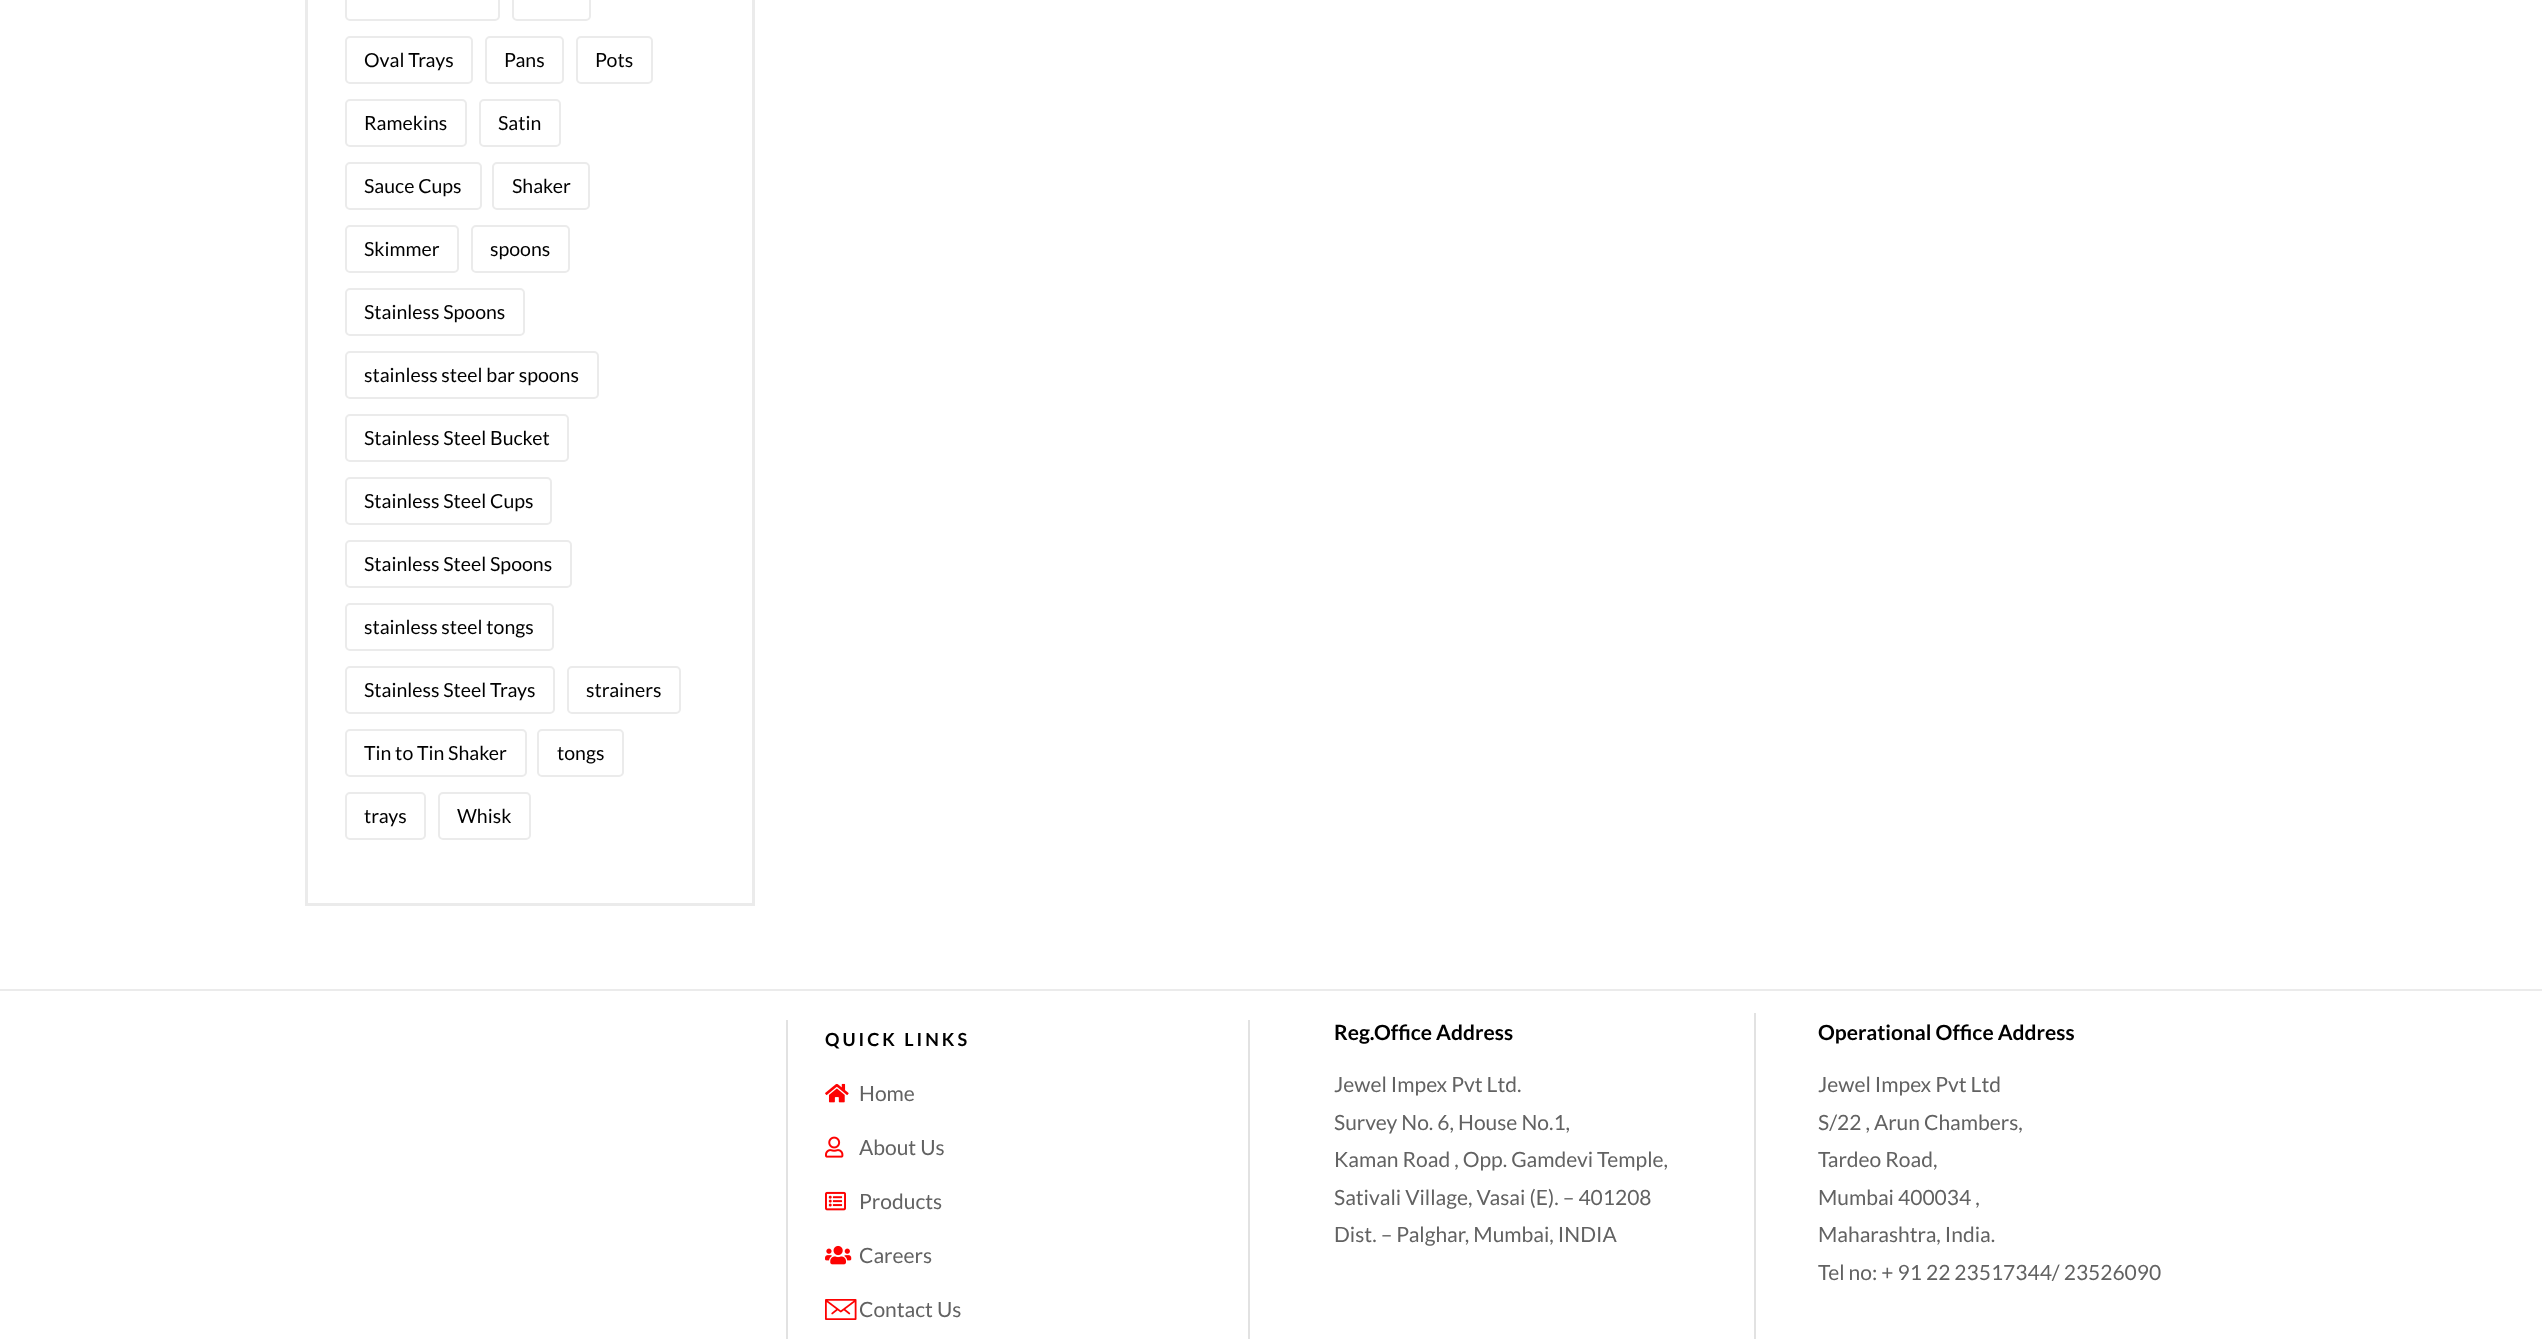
<!DOCTYPE html>
<meta charset="utf-8">
<style>body { margin: 0 } canvas { display: block }</style>
<canvas id="canvas" width="2542" height="1339"></canvas>
<img id="img1" src="images/1.png" hidden>
<img id="img2" src="images/2.png" hidden>
<img id="img3" src="images/3.png" hidden>
<img id="img4" src="images/4.png" hidden>
<img id="img5" src="images/5.png" hidden>
<script>
window.onload = function () {
    const canvas = document.getElementById('canvas');
    const context = canvas.getContext('2d');
    context.miterLimit = 4;
    context.fontKerning = 'normal';

    context.fillStyle = 'rgb(255, 255, 255)';
    context.fillRect(0, 0, 2542, 1339);
    context.strokeStyle = 'rgb(235, 235, 235)';
    context.lineWidth = 3;
    context.strokeRect(306.5, -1.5, 447, 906);
    context.beginPath();
    context.roundRect(346, -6, 153, 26, 4);
    context.lineWidth = 2;
    context.stroke();
    context.beginPath();
    context.roundRect(513, -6, 77, 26, 4);
    context.stroke();
    context.beginPath();
    context.roundRect(346, 37, 126, 46, 4);
    context.stroke();
    context.beginPath();
    context.roundRect(486, 37, 77, 46, 4);
    context.stroke();
    context.beginPath();
    context.roundRect(577, 37, 75, 46, 4);
    context.stroke();
    context.beginPath();
    context.roundRect(346, 100, 120, 46, 4);
    context.stroke();
    context.beginPath();
    context.roundRect(480, 100, 80, 46, 4);
    context.stroke();
    context.beginPath();
    context.roundRect(346, 163, 135, 46, 4);
    context.stroke();
    context.beginPath();
    context.roundRect(493, 163, 96, 46, 4);
    context.stroke();
    context.beginPath();
    context.roundRect(346, 226, 112, 46, 4);
    context.stroke();
    context.beginPath();
    context.roundRect(472, 226, 97, 46, 4);
    context.stroke();
    context.beginPath();
    context.roundRect(346, 289, 178, 46, 4);
    context.stroke();
    context.beginPath();
    context.roundRect(346, 352, 252, 46, 4);
    context.stroke();
    context.beginPath();
    context.roundRect(346, 415, 222, 46, 4);
    context.stroke();
    context.beginPath();
    context.roundRect(346, 478, 205, 46, 4);
    context.stroke();
    context.beginPath();
    context.roundRect(346, 541, 225, 46, 4);
    context.stroke();
    context.beginPath();
    context.roundRect(346, 604, 207, 46, 4);
    context.stroke();
    context.beginPath();
    context.roundRect(346, 667, 208, 46, 4);
    context.stroke();
    context.beginPath();
    context.roundRect(568, 667, 112, 46, 4);
    context.stroke();
    context.beginPath();
    context.roundRect(346, 730, 180, 46, 4);
    context.stroke();
    context.beginPath();
    context.roundRect(538, 730, 85, 46, 4);
    context.stroke();
    context.beginPath();
    context.roundRect(346, 793, 79, 46, 4);
    context.stroke();
    context.beginPath();
    context.roundRect(439, 793, 91, 46, 4);
    context.stroke();
    context.fillStyle = 'rgb(235, 235, 235)';
    context.fillRect(0, 989, 2542, 2);
    context.fillStyle = 'rgb(226, 226, 226)';
    context.fillRect(786, 1020, 2, 319);
    context.fillRect(1248, 1020, 2, 319);
    context.drawImage(document.getElementById('img1'), 825, 1083, 24, 20);
    context.drawImage(document.getElementById('img2'), 825, 1136, 19, 22);
    context.drawImage(document.getElementById('img3'), 825, 1191, 21, 20);
    context.drawImage(document.getElementById('img4'), 825, 1245, 27, 20);
    context.drawImage(document.getElementById('img5'), 825, 1299, 32, 21);
    context.fillRect(1754, 1013, 2, 326);
    context.font = '19.5px Lato';
    context.fillStyle = 'rgb(0, 0, 0)';
    context.fillText('Oval Trays', 364, 67);
    context.fillText('Pans', 504, 67);
    context.fillText('Pots', 595, 67);
    context.fillText('Ramekins', 364, 130);
    context.fillText('Satin', 498, 130);
    context.fillText('Sauce Cups', 364, 193);
    context.fillText('Shaker', 512, 193);
    context.fillText('Skimmer', 364, 256);
    context.fillText('spoons', 490, 256);
    context.fillText('Stainless Spoons', 364, 319);
    context.fillText('stainless steel bar spoons', 364, 382);
    context.fillText('Stainless Steel Bucket', 364, 445);
    context.fillText('Stainless Steel Cups', 364, 508);
    context.fillText('Stainless Steel Spoons', 364, 571);
    context.fillText('stainless steel tongs', 364, 634);
    context.fillText('Stainless Steel Trays', 364, 697);
    context.fillText('strainers', 586, 697);
    context.fillText('Tin to Tin Shaker', 364, 760);
    context.fillText('tongs', 557, 760);
    context.fillText('trays', 364, 823);
    context.fillText('Whisk', 457, 823);
    context.letterSpacing = '3px';
    context.font = 'bold 18px Lato';
    context.fillText('QUICK LINKS', 825, 1046);
    context.letterSpacing = '0px';
    context.font = '21px Lato';
    context.fillStyle = 'rgb(98, 98, 98)';
    context.fillText('Home', 859, 1101);
    context.fillText('About Us', 859, 1155);
    context.fillText('Products', 859, 1209);
    context.fillText('Careers', 859, 1263);
    context.fillText('Contact Us', 859, 1317);
    context.font = 'bold 21px Lato';
    context.fillStyle = 'rgb(0, 0, 0)';
    context.fillText('Reg.Office Address', 1334, 1040);
    context.font = '21px Lato';
    context.fillStyle = 'rgb(98, 98, 98)';
    context.fillText('Jewel Impex Pvt Ltd.', 1334, 1092);
    context.fillText('Survey No. 6, House No.1,', 1334, 1130);
    context.fillText('Kaman Road , Opp. Gamdevi Temple,', 1334, 1167);
    context.fillText('Sativali Village, Vasai (E). – 401208', 1334, 1205);
    context.fillText('Dist. – Palghar, Mumbai, INDIA', 1334, 1242);
    context.font = 'bold 21px Lato';
    context.fillStyle = 'rgb(0, 0, 0)';
    context.fillText('Operational Office Address', 1818, 1040);
    context.font = '21px Lato';
    context.fillStyle = 'rgb(98, 98, 98)';
    context.fillText('Jewel Impex Pvt Ltd', 1818, 1092);
    context.fillText('S/22 , Arun Chambers,', 1818, 1130);
    context.fillText('Tardeo Road,', 1818, 1167);
    context.fillText('Mumbai 400034 ,', 1818, 1205);
    context.fillText('Maharashtra, India.', 1818, 1242);
    context.fillText('Tel no: + 91 22 23517344/ 23526090', 1818, 1280);
};
</script>
